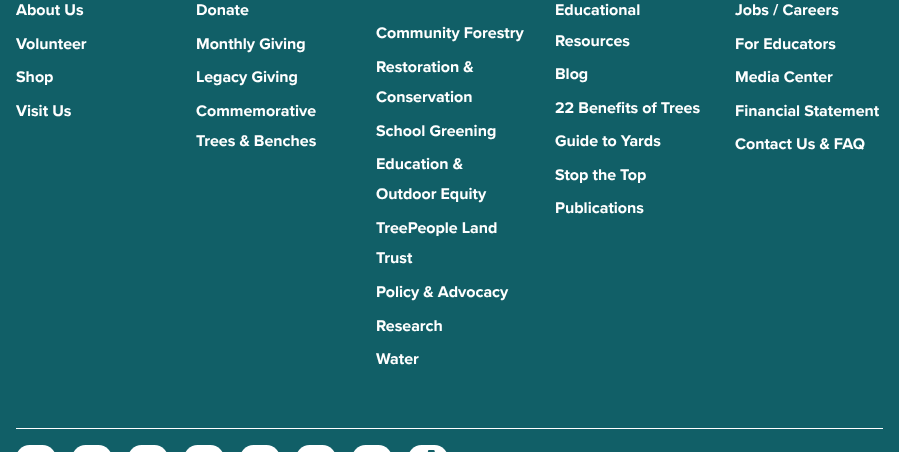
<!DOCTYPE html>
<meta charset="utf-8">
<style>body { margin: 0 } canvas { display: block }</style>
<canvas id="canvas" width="899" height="452"></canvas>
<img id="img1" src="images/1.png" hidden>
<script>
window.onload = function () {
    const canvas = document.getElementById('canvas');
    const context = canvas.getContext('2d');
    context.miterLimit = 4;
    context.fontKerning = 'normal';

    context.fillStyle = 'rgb(17, 95, 103)';
    context.fillRect(0, 0, 899, 452);
    context.fillStyle = 'rgb(255, 255, 255)';
    context.fillRect(16, 428, 867, 1);
    context.beginPath();
    context.roundRect(16, 445, 40, 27, 20);
    context.fill();
    context.beginPath();
    context.roundRect(72, 445, 40, 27, 20);
    context.fill();
    context.beginPath();
    context.roundRect(128, 445, 40, 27, 20);
    context.fill();
    context.beginPath();
    context.roundRect(184, 445, 40, 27, 20);
    context.fill();
    context.beginPath();
    context.roundRect(240, 445, 40, 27, 20);
    context.fill();
    context.beginPath();
    context.roundRect(296, 445, 40, 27, 20);
    context.fill();
    context.beginPath();
    context.roundRect(352, 445, 40, 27, 20);
    context.fill();
    context.beginPath();
    context.roundRect(408, 445, 40, 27, 20);
    context.fill();
    context.drawImage(document.getElementById('img1'), 427, 450, 8, 2);
    context.font = 'bold 16px Proxima Nova';
    context.fillText('About Us', 16, 15);
    context.fillText('Volunteer', 16, 49);
    context.fillText('Shop', 16, 82);
    context.fillText('Visit Us', 16, 116);
    context.fillText('Donate', 196, 15);
    context.fillText('Monthly Giving', 196, 49);
    context.fillText('Legacy Giving', 196, 82);
    context.fillText('Commemorative', 196, 116);
    context.fillText('Trees & Benches', 196, 146);
    context.fillText('Community Forestry', 376, 38);
    context.fillText('Restoration &', 376, 72);
    context.fillText('Conservation', 376, 102);
    context.fillText('School Greening', 376, 136);
    context.fillText('Education &', 376, 169);
    context.fillText('Outdoor Equity', 376, 199);
    context.fillText('TreePeople Land', 376, 233);
    context.fillText('Trust', 376, 263);
    context.fillText('Policy & Advocacy', 376, 297);
    context.fillText('Research', 376, 331);
    context.fillText('Water', 376, 364);
    context.fillText('Educational', 555, 15);
    context.fillText('Resources', 555, 46);
    context.fillText('Blog', 555, 79);
    context.fillText('22 Benefits of Trees', 555, 113);
    context.fillText('Guide to Yards', 555, 146);
    context.fillText('Stop the Top', 555, 180);
    context.fillText('Publications', 555, 213);
    context.fillText('Jobs / Careers', 735, 15);
    context.fillText('For Educators', 735, 49);
    context.fillText('Media Center', 735, 82);
    context.fillText('Financial Statement', 735, 116);
    context.fillText('Contact Us & FAQ', 735, 149);
};
</script>
